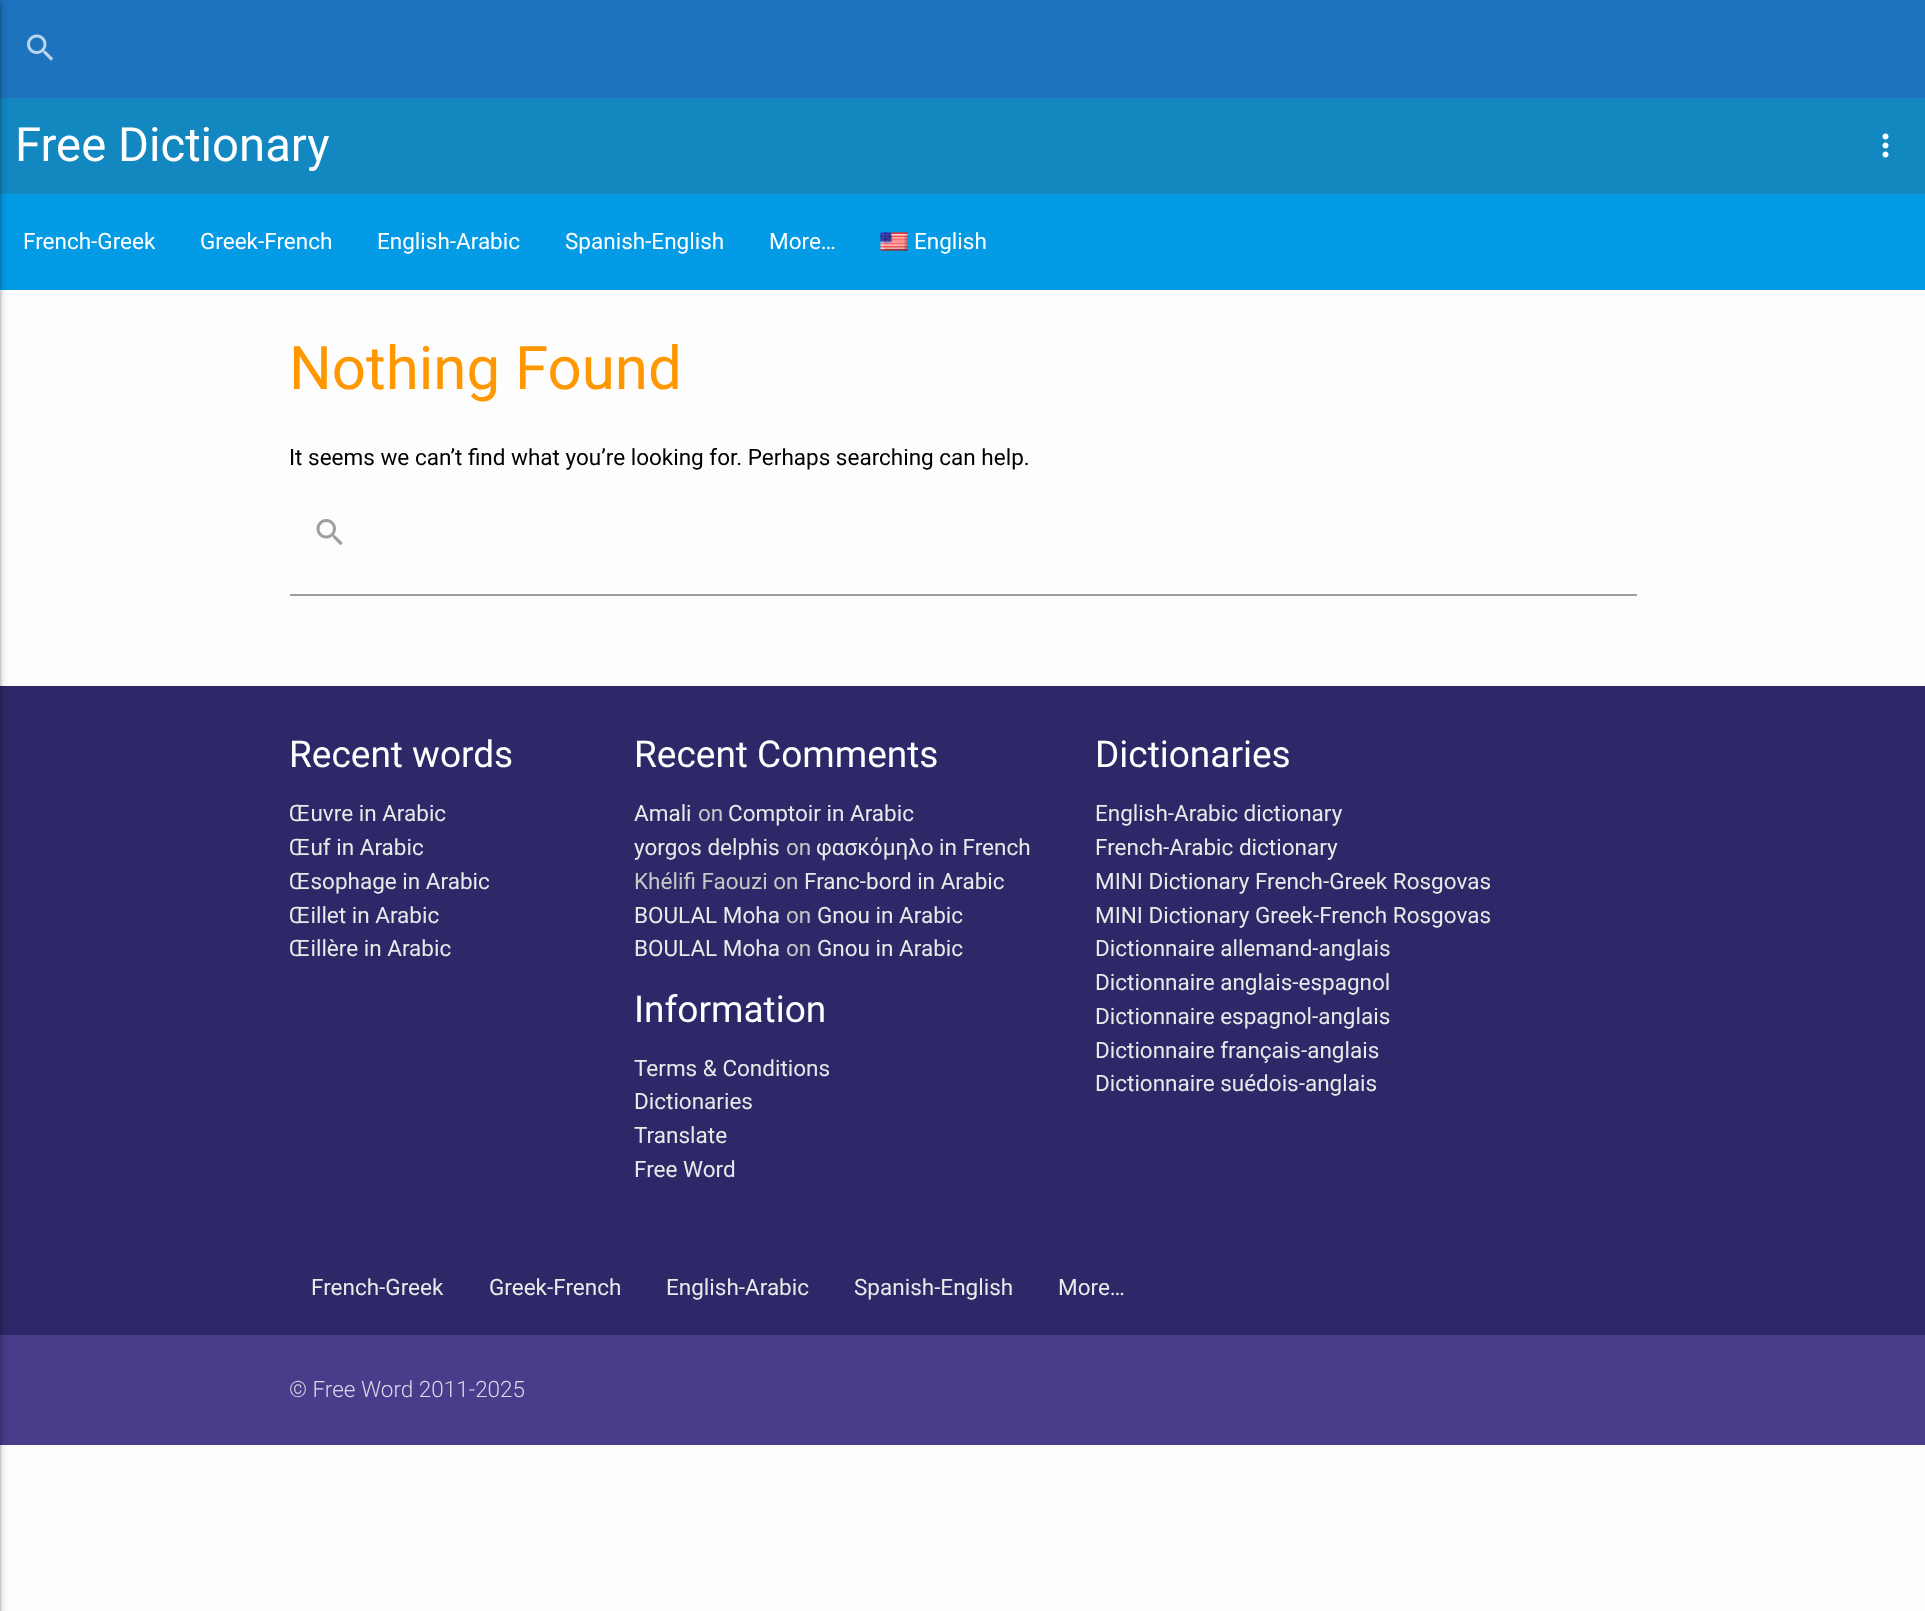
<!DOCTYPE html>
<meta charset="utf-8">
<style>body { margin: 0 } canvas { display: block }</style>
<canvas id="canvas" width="1925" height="1611"></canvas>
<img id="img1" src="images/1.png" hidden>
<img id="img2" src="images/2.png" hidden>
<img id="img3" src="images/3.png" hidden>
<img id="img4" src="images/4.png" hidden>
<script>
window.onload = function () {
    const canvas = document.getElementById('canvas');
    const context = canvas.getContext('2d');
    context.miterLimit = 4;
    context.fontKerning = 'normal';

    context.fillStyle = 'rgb(253, 253, 253)';
    context.fillRect(0, 0, 1925, 1611);
    context.fillStyle = 'rgb(3, 155, 229)';
    context.fillRect(0, 194, 1925, 96);
    context.fillStyle = 'rgb(30, 115, 190)';
    context.fillRect(0, 0, 1925, 98);
    context.fillStyle = 'rgb(19, 135, 192)';
    context.fillRect(0, 98, 1925, 96);
    context.fillStyle = 'rgb(45, 40, 104)';
    context.fillRect(0, 686, 1925, 649);
    context.fillStyle = 'rgb(72, 61, 139)';
    context.fillRect(0, 1335, 1925, 110);
    context.fillStyle = 'rgba(0, 0, 0, 0.12)';
    context.filter = 'blur(4px)';
    context.beginPath();
    context.rect(-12, 2, 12, 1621);
    context.fill();
    context.filter = 'none';
    context.fillStyle = 'rgba(0, 0, 0, 0.14)';
    context.filter = 'blur(1.5px)';
    context.beginPath();
    context.rect(-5, 3, 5, 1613);
    context.fill();
    context.filter = 'none';
    context.fillStyle = 'rgba(0, 0, 0, 0.12)';
    context.filter = 'blur(4px)';
    context.beginPath();
    context.rect(-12, 2, 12, 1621);
    context.fill();
    context.filter = 'none';
    context.fillStyle = 'rgba(0, 0, 0, 0.14)';
    context.filter = 'blur(1.5px)';
    context.beginPath();
    context.rect(-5, 3, 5, 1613);
    context.fill();
    context.filter = 'none';
    context.drawImage(document.getElementById('img1'), 27, 34, 27, 27);
    context.drawImage(document.getElementById('img2'), 1882, 133, 7, 25);
    context.drawImage(document.getElementById('img3'), 880, 232, 28, 19);
    context.drawImage(document.getElementById('img4'), 316, 519, 27, 27);
    context.fillStyle = 'rgb(158, 158, 158)';
    context.fillRect(290, 594, 1347, 2);
    context.font = '47.25px Roboto';
    context.fillStyle = 'rgb(255, 255, 255)';
    context.fillText('Free Dictionary', 15, 161);
    context.font = '22.5px Roboto';
    context.fillText('French-Greek', 23, 249);
    context.fillText('Greek-French', 200, 249);
    context.fillText('English-Arabic', 377, 249);
    context.fillText('Spanish-English', 565, 249);
    context.fillText('More…', 769, 249);
    context.fillText('English', 914, 249);
    context.font = '60px Roboto';
    context.fillStyle = 'rgb(255, 152, 0)';
    context.fillText('Nothing Found', 289, 389);
    context.font = '22.5px Roboto';
    context.fillStyle = 'rgb(0, 0, 0)';
    context.fillText('It seems we can’t find what you’re looking for. Perhaps searching can help.', 289, 465);
    context.font = '37px Roboto';
    context.fillStyle = 'rgb(255, 255, 255)';
    context.fillText('Recent words', 289, 767);
    context.font = '22.5px Roboto';
    context.fillStyle = 'rgb(233, 233, 233)';
    context.fillText('Œuvre in Arabic', 289, 821);
    context.fillText('Œuf in Arabic', 289, 855);
    context.fillText('Œsophage in Arabic', 289, 889);
    context.fillText('Œillet in Arabic', 289, 923);
    context.fillText('Œillère in Arabic', 289, 956);
    context.font = '37px Roboto';
    context.fillStyle = 'rgb(255, 255, 255)';
    context.fillText('Recent Comments', 634, 767);
    context.font = '22.5px Roboto';
    context.fillStyle = 'rgb(233, 233, 233)';
    context.fillText('Amali', 634, 821);
    context.fillStyle = 'rgb(199, 199, 199)';
    context.fillText('on', 698, 821);
    context.fillStyle = 'rgb(233, 233, 233)';
    context.fillText('Comptoir in Arabic', 728, 821);
    context.fillText('yorgos delphis', 634, 855);
    context.fillStyle = 'rgb(199, 199, 199)';
    context.fillText('on', 786, 855);
    context.fillStyle = 'rgb(233, 233, 233)';
    context.fillText('φασκόμηλο in French', 816, 855);
    context.fillStyle = 'rgb(199, 199, 199)';
    context.fillText('Khélifi Faouzi on', 634, 889);
    context.fillStyle = 'rgb(233, 233, 233)';
    context.fillText('Franc-bord in Arabic', 804, 889);
    context.fillText('BOULAL Moha', 634, 923);
    context.fillStyle = 'rgb(199, 199, 199)';
    context.fillText('on', 786, 923);
    context.fillStyle = 'rgb(233, 233, 233)';
    context.fillText('Gnou in Arabic', 817, 923);
    context.fillText('BOULAL Moha', 634, 956);
    context.fillStyle = 'rgb(199, 199, 199)';
    context.fillText('on', 786, 956);
    context.fillStyle = 'rgb(233, 233, 233)';
    context.fillText('Gnou in Arabic', 817, 956);
    context.font = '37px Roboto';
    context.fillStyle = 'rgb(255, 255, 255)';
    context.fillText('Information', 634, 1022);
    context.font = '22.5px Roboto';
    context.fillStyle = 'rgb(233, 233, 233)';
    context.fillText('Terms & Conditions', 634, 1076);
    context.fillText('Dictionaries', 634, 1109);
    context.fillText('Translate', 634, 1143);
    context.fillText('Free Word', 634, 1177);
    context.font = '37px Roboto';
    context.fillStyle = 'rgb(255, 255, 255)';
    context.fillText('Dictionaries', 1095, 767);
    context.font = '22.5px Roboto';
    context.fillStyle = 'rgb(233, 233, 233)';
    context.fillText('English-Arabic dictionary', 1095, 821);
    context.fillText('French-Arabic dictionary', 1095, 855);
    context.fillText('MINI Dictionary French-Greek Rosgovas', 1095, 889);
    context.fillText('MINI Dictionary Greek-French Rosgovas', 1095, 923);
    context.fillText('Dictionnaire allemand-anglais', 1095, 956);
    context.fillText('Dictionnaire anglais-espagnol', 1095, 990);
    context.fillText('Dictionnaire espagnol-anglais', 1095, 1024);
    context.fillText('Dictionnaire français-anglais', 1095, 1058);
    context.fillText('Dictionnaire suédois-anglais', 1095, 1091);
    context.fillText('French-Greek', 311, 1295);
    context.fillText('Greek-French', 489, 1295);
    context.fillText('English-Arabic', 666, 1295);
    context.fillText('Spanish-English', 854, 1295);
    context.fillText('More…', 1058, 1295);
    context.font = '300 22.5px Roboto';
    context.fillStyle = 'rgb(218, 216, 232)';
    context.fillText('© Free Word 2011-2025', 289, 1397);
};
</script>
